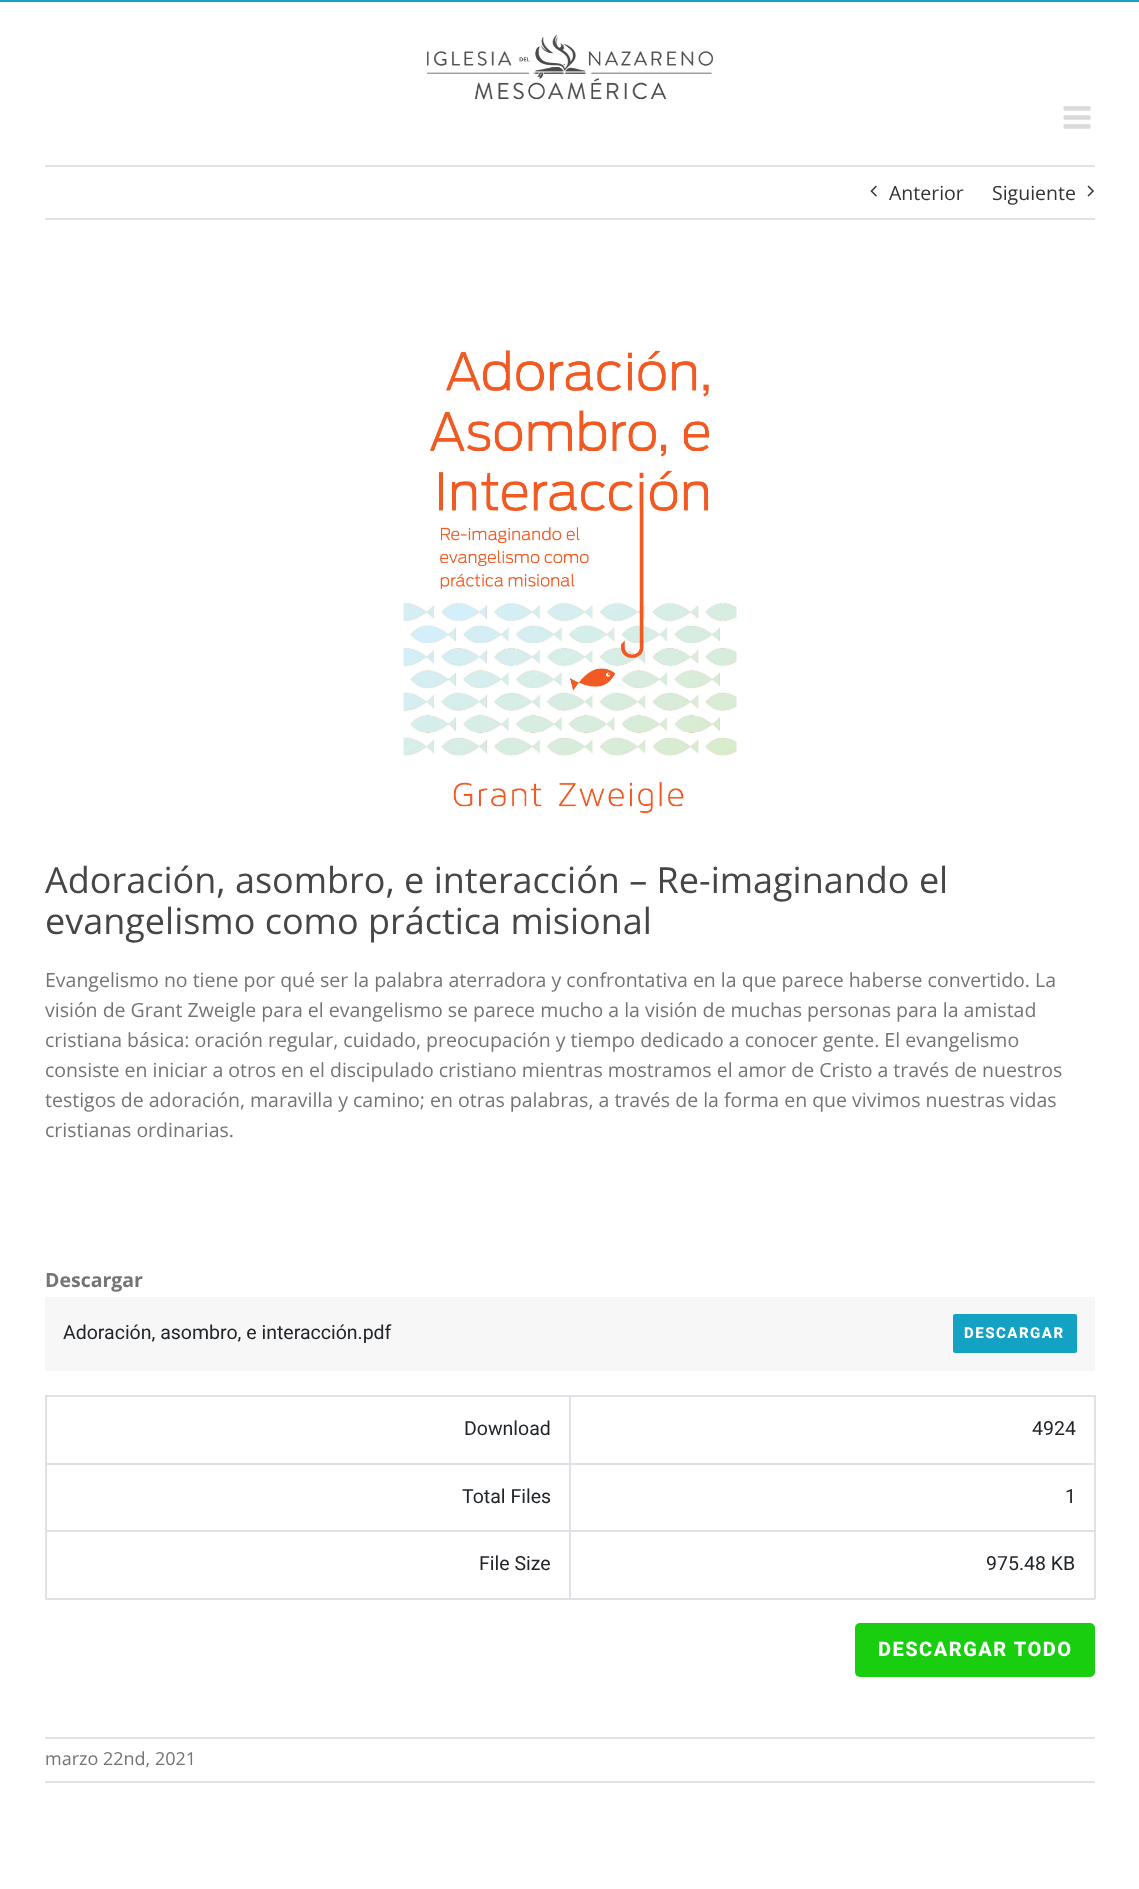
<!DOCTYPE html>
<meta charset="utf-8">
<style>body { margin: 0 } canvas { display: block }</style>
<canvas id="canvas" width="1139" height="1889"></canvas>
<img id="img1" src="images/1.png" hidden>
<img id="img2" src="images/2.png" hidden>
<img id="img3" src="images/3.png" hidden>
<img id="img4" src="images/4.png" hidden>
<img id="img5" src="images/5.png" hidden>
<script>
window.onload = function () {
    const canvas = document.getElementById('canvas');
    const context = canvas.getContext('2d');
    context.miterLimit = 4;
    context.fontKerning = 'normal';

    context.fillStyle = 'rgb(255, 255, 255)';
    context.fillRect(0, 0, 1139, 1889);
    context.fillStyle = 'rgb(19, 161, 196)';
    context.fillRect(0, 0, 1139, 2);
    context.drawImage(document.getElementById('img1'), 427, 35, 286, 65);
    context.drawImage(document.getElementById('img2'), 1063, 106, 28, 23);
    context.fillStyle = 'rgb(226, 226, 226)';
    context.fillRect(45, 165, 1050, 2);
    context.fillRect(45, 218, 1050, 2);
    context.drawImage(document.getElementById('img3'), 870, 185, 7, 12);
    context.drawImage(document.getElementById('img4'), 1087, 185, 7, 12);
    context.drawImage(document.getElementById('img5'), 403, 349, 334, 466);
    context.fillStyle = 'rgb(247, 247, 247)';
    context.fillRect(45, 1297, 1050, 74);
    context.fillStyle = 'rgb(19, 161, 196)';
    context.beginPath();
    context.roundRect(953, 1314, 124, 39, 2);
    context.fill();
    context.fillStyle = 'rgb(222, 226, 230)';
    context.fillRect(1094, 1395, 2, 204);
    context.fillRect(45, 1598, 1050, 2);
    context.fillRect(45, 1395, 2, 204);
    context.fillRect(569, 1395, 526, 2);
    context.fillRect(569, 1463, 526, 2);
    context.fillRect(569, 1530, 526, 2);
    context.fillRect(569, 1530, 2, 69);
    context.fillRect(45, 1530, 525, 2);
    context.fillRect(569, 1463, 2, 69);
    context.fillRect(45, 1463, 525, 2);
    context.fillRect(569, 1395, 2, 69);
    context.fillRect(45, 1395, 525, 2);
    context.fillStyle = 'rgb(24, 206, 15)';
    context.beginPath();
    context.roundRect(855, 1623, 240, 54, 5);
    context.fill();
    context.fillStyle = 'rgb(226, 226, 226)';
    context.fillRect(45, 1737, 1050, 2);
    context.fillRect(45, 1781, 1050, 2);
    context.font = '19.5px Open Sans';
    context.fillStyle = 'rgb(51, 51, 51)';
    context.fillText('Anterior', 889, 200);
    context.fillText('Siguiente', 992, 200);
    context.font = '36px Open Sans';
    context.fillStyle = 'rgb(70, 70, 70)';
    context.fillText('Adoración, asombro, e interacción – Re-imaginando el', 45, 893);
    context.fillText('evangelismo como práctica misional', 45, 934);
    context.font = '19.5px Open Sans';
    context.fillStyle = 'rgb(116, 116, 116)';
    context.fillText('Evangelismo no tiene por qué ser la palabra aterradora y confrontativa en la que parece haberse convertido. La', 45, 987);
    context.fillText('visión de Grant Zweigle para el evangelismo se parece mucho a la visión de muchas personas para la amistad', 45, 1017);
    context.fillText('cristiana básica: oración regular, cuidado, preocupación y tiempo dedicado a conocer gente. El evangelismo', 45, 1047);
    context.fillText('consiste en iniciar a otros en el discipulado cristiano mientras mostramos el amor de Cristo a través de nuestros', 45, 1077);
    context.fillText('testigos de adoración, maravilla y camino; en otras palabras, a través de la forma en que vivimos nuestras vidas', 45, 1107);
    context.fillText('cristianas ordinarias.', 45, 1137);
    context.font = 'bold 19.5px Open Sans';
    context.fillText('Descargar', 45, 1287);
    context.font = '19.5px Roboto';
    context.fillStyle = 'rgb(33, 37, 41)';
    context.fillText('Adoración, asombro, e interacción.pdf', 63, 1339);
    context.letterSpacing = '1.5px';
    context.font = '800 15px Roboto';
    context.fillStyle = 'rgb(255, 255, 255)';
    context.fillText('DESCARGAR', 964, 1338);
    context.letterSpacing = '0px';
    context.font = '19.5px Roboto';
    context.fillStyle = 'rgb(33, 37, 41)';
    context.fillText('Download', 464, 1435);
    context.fillText('4924', 1032, 1435);
    context.fillText('Total Files', 462, 1503);
    context.fillText('1', 1065, 1503);
    context.fillText('File Size', 479, 1570);
    context.fillText('975.48 KB', 986, 1570);
    context.letterSpacing = '1.5px';
    context.font = '800 20px Roboto';
    context.fillStyle = 'rgb(255, 255, 255)';
    context.fillText('DESCARGAR TODO', 878, 1656);
    context.letterSpacing = '0px';
    context.font = '18px Open Sans';
    context.fillStyle = 'rgb(116, 116, 116)';
    context.fillText('marzo 22nd, 2021', 45, 1765);
};
</script>
